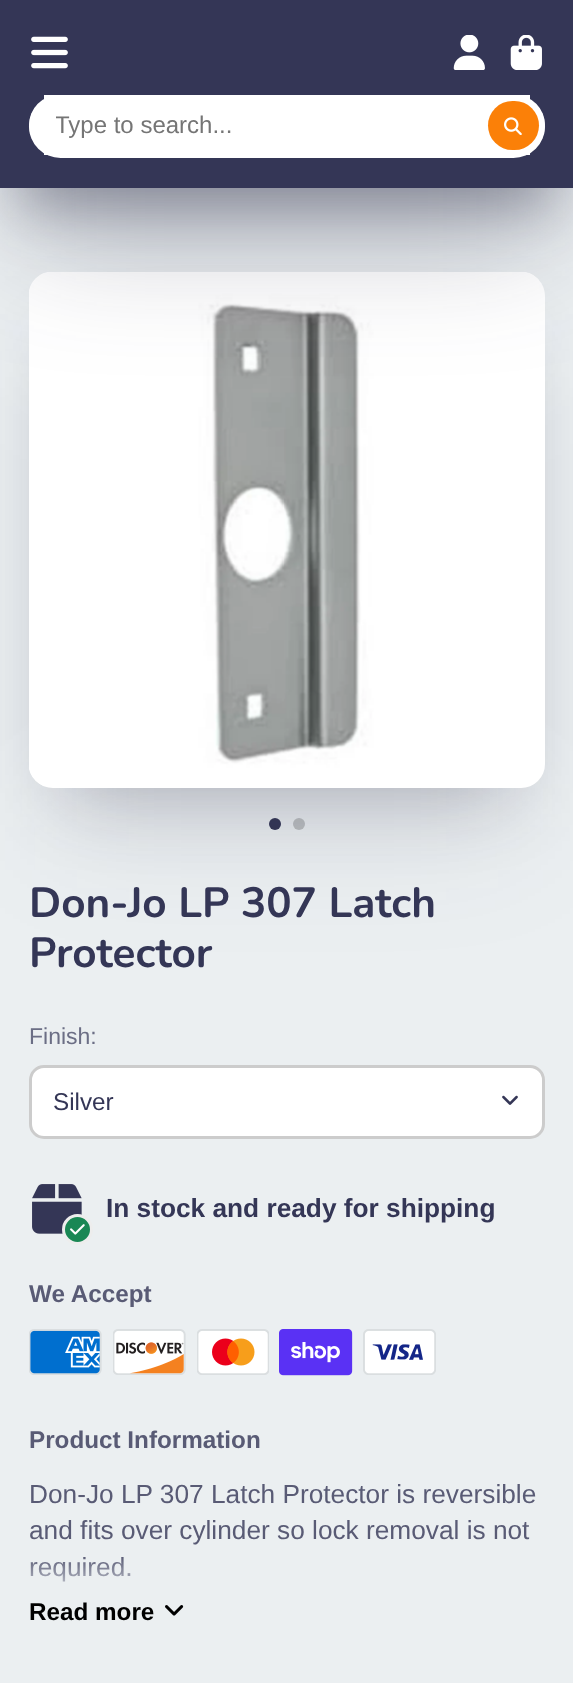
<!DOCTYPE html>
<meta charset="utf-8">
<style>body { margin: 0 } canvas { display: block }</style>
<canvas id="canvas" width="573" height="1683"></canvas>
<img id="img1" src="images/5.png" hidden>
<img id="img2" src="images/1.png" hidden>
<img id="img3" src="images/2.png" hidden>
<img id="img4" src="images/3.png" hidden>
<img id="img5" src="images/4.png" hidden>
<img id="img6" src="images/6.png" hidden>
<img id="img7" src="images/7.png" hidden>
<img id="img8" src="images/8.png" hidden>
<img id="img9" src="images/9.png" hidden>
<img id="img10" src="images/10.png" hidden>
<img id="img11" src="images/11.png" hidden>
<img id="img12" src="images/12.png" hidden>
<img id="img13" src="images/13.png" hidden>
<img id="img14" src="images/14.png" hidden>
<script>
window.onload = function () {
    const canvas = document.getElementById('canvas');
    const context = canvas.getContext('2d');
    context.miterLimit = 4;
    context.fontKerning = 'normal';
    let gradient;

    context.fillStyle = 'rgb(235, 239, 241)';
    context.fillRect(0, 0, 573, 1683);
    context.fillStyle = 'rgb(52, 54, 86)';
    context.beginPath();
    context.arc(275, 824, 6, 0, 2 * Math.PI);
    context.fill();
    context.fillStyle = 'rgb(188, 191, 193)';
    context.beginPath();
    context.arc(299, 824, 6, 0, 2 * Math.PI);
    context.fill();
    context.fillStyle = 'rgba(42, 44, 70, 0.3)';
    context.filter = 'blur(39.5px)';
    context.beginPath();
    context.rect(68, 351, 438, 437);
    context.fill();
    context.filter = 'none';
    context.fillStyle = 'rgba(42, 44, 70, 0.1)';
    context.filter = 'blur(65.5px)';
    context.beginPath();
    context.rect(56, 363, 463, 464);
    context.fill();
    context.filter = 'none';
    context.fillStyle = 'rgb(255, 255, 255)';
    context.beginPath();
    context.roundRect(29, 272, 516, 516, 24);
    context.fill();
    context.drawImage(document.getElementById('img1'), 29, 272, 510, 514);
    context.fillStyle = 'rgba(42, 44, 70, 0.4)';
    context.filter = 'blur(29px)';
    context.beginPath();
    context.rect(21, 60, 531, 146);
    context.fill();
    context.filter = 'none';
    context.fillStyle = 'rgba(42, 44, 70, 0.3)';
    context.filter = 'blur(65.5px)';
    context.beginPath();
    context.rect(21, 87, 531, 146);
    context.fill();
    context.filter = 'none';
    context.fillStyle = 'rgb(52, 54, 86)';
    context.fillRect(0, 0, 573, 188);
    context.drawImage(document.getElementById('img2'), 31, 36, 37, 33);
    context.drawImage(document.getElementById('img3'), 453, 35, 32, 35);
    context.drawImage(document.getElementById('img4'), 510, 35, 32, 35);
    context.fillStyle = 'rgb(255, 255, 255)';
    context.beginPath();
    context.roundRect(29, 95, 516, 60, 30);
    context.fill();
    context.fillRect(44, 95, 486, 60);
    context.beginPath();
    context.roundRect(29, 95, 516, 63, 31.5);
    context.fill();
    context.fillStyle = 'rgb(251, 128, 8)';
    context.beginPath();
    context.roundRect(488, 101, 51, 49, 24.5);
    context.fill();
    context.drawImage(document.getElementById('img5'), 504, 117, 18, 18);
    context.fillStyle = 'rgb(255, 255, 255)';
    context.beginPath();
    context.roundRect(30.5, 1066.5, 513, 71, 13.5);
    context.fill();
    context.strokeStyle = 'rgb(204, 204, 204)';
    context.lineWidth = 3;
    context.stroke();
    context.drawImage(document.getElementById('img6'), 502, 1095, 16, 10);
    context.drawImage(document.getElementById('img7'), 32, 1184, 50, 50);
    context.fillStyle = 'rgb(25, 135, 84)';
    context.beginPath();
    context.arc(77.5, 1229.5, 14, 0, 2 * Math.PI);
    context.fill();
    context.strokeStyle = 'rgb(237, 237, 237)';
    context.stroke();
    context.drawImage(document.getElementById('img8'), 70, 1224, 15, 11);
    context.drawImage(document.getElementById('img9'), 29, 1329, 73, 46);
    context.drawImage(document.getElementById('img10'), 113, 1329, 73, 46);
    context.drawImage(document.getElementById('img11'), 197, 1329, 72, 46);
    context.drawImage(document.getElementById('img12'), 279, 1329, 74, 47);
    context.drawImage(document.getElementById('img13'), 363, 1329, 73, 46);
    context.drawImage(document.getElementById('img14'), 165, 1605, 19, 11);
    context.save();
    context.beginPath();
    context.rect(56, 113, 462, 27);
    context.clip();
    context.font = '24px Liberation Sans';
    context.fillStyle = 'rgb(117, 117, 117)';
    context.fillText('Type to search...', 55, 133);
    context.restore();
    context.font = 'bold 42.25px Nunito';
    context.fillStyle = 'rgb(52, 54, 86)';
    context.fillText('Don-Jo LP 307 Latch', 29, 917);
    context.fillText('Protector', 29, 967);
    context.font = '23px Liberation Sans';
    context.fillStyle = 'rgb(107, 110, 133)';
    context.fillText('Finish:', 29, 1044);
    context.font = '24.25px Liberation Sans';
    context.fillStyle = 'rgb(52, 54, 86)';
    context.fillText('Silver', 53, 1110);
    context.font = 'bold 26.25px Liberation Sans';
    context.fillText('In stock and ready for shipping', 106, 1217);
    context.font = 'bold 24.25px Liberation Sans';
    context.fillStyle = 'rgb(89, 91, 117)';
    context.fillText('We Accept', 29, 1302);
    context.fillText('Product Information', 29, 1448);
    context.font = '26.25px Liberation Sans';
    context.fillText('Don-Jo LP 307 Latch Protector is reversible', 29, 1503);
    context.fillText('and fits over cylinder so lock removal is not', 29, 1539);
    context.fillText('required.', 29, 1576);
    gradient = context.createLinearGradient(287, 1626, 287, 1556);
    gradient.addColorStop(0.35, 'rgb(235, 239, 241)');
    gradient.addColorStop(1, 'rgba(235, 239, 241, 0)');
    context.fillStyle = gradient;
    context.fillRect(30, 1557, 100, 25);
    context.font = 'bold 24.25px Liberation Sans';
    context.fillStyle = 'rgb(0, 0, 0)';
    context.fillText('Read more', 29, 1620);
};
</script>
